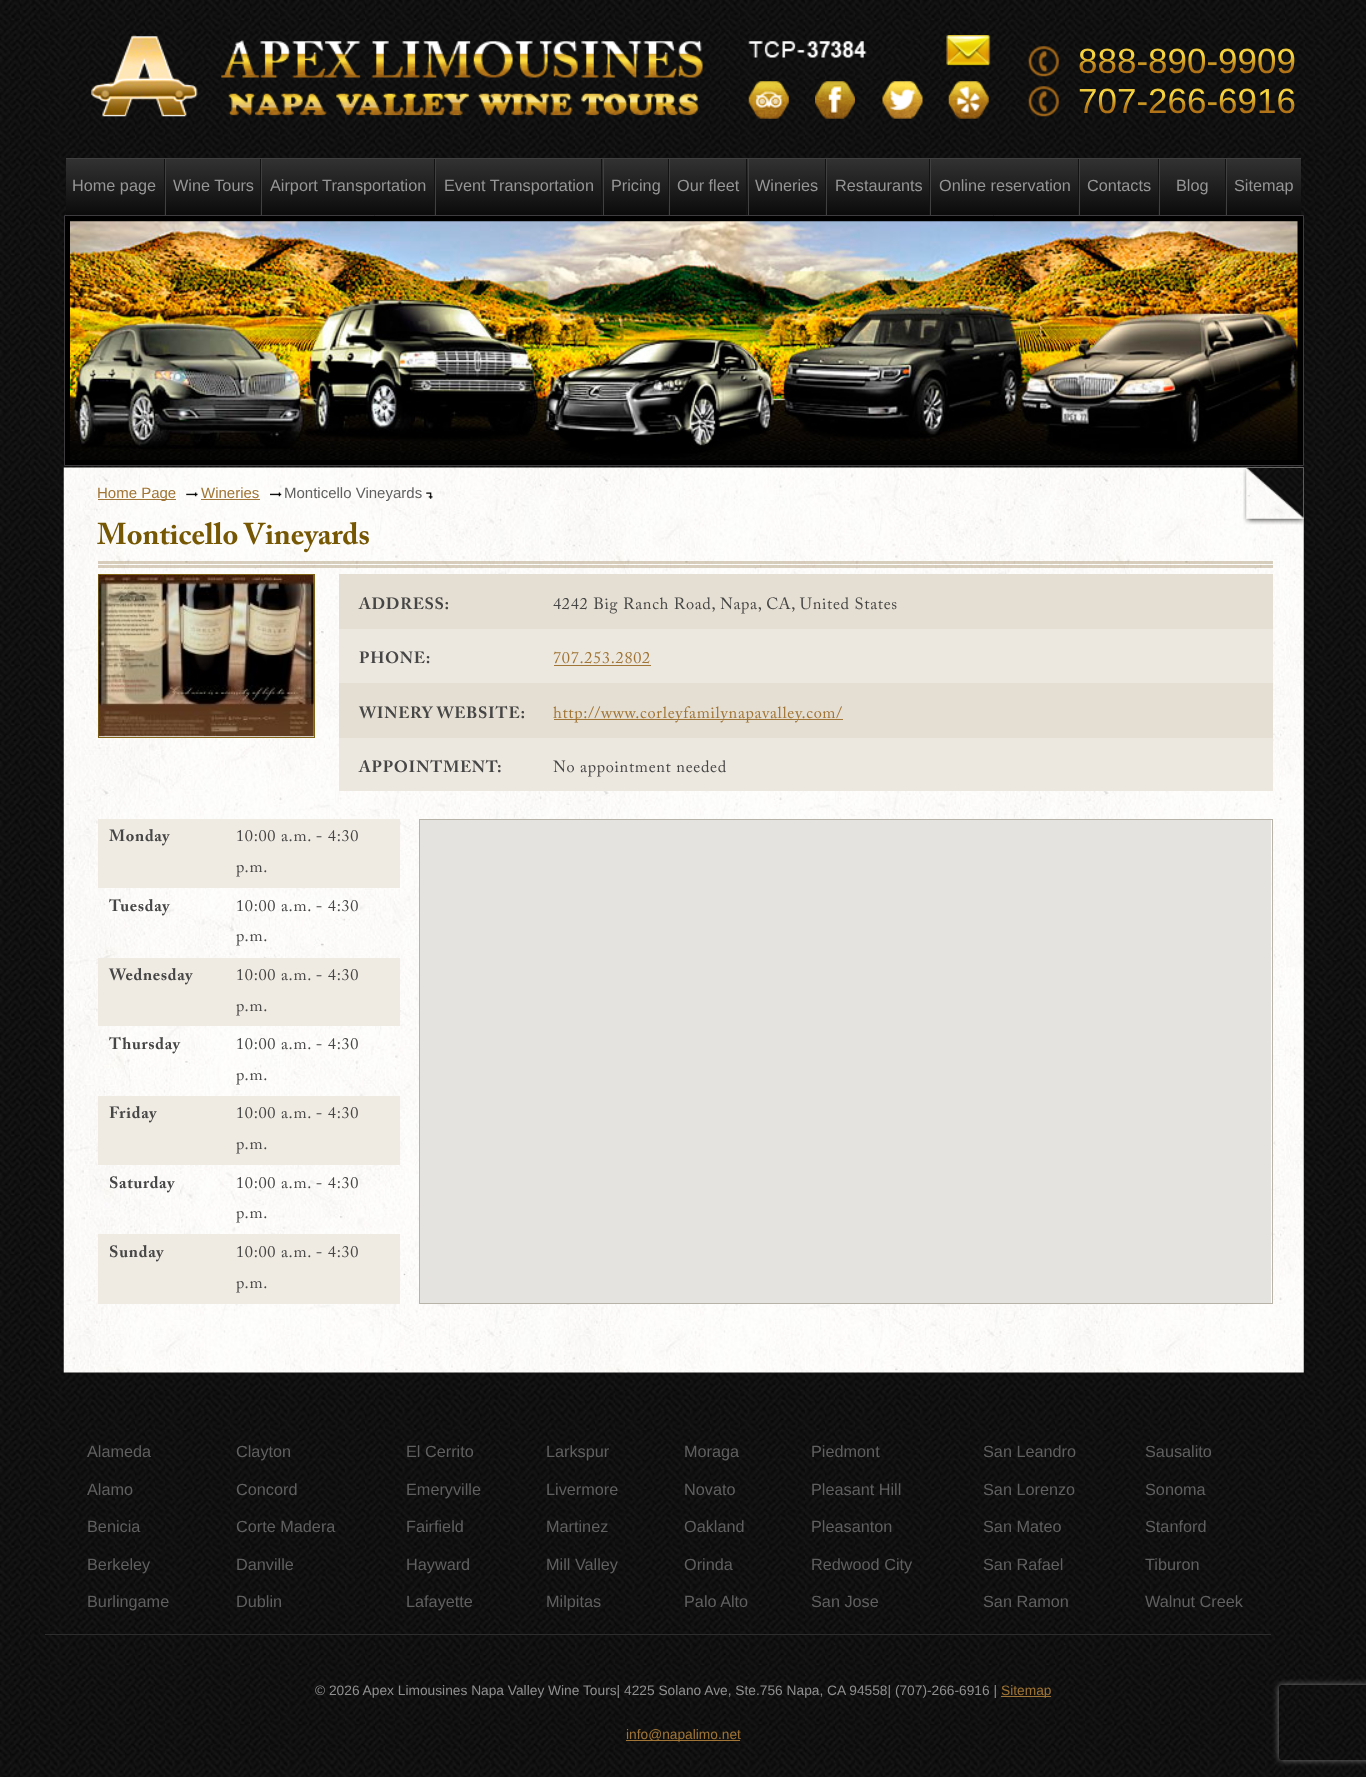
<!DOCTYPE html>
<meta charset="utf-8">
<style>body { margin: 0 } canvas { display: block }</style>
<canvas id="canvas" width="1366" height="1777"></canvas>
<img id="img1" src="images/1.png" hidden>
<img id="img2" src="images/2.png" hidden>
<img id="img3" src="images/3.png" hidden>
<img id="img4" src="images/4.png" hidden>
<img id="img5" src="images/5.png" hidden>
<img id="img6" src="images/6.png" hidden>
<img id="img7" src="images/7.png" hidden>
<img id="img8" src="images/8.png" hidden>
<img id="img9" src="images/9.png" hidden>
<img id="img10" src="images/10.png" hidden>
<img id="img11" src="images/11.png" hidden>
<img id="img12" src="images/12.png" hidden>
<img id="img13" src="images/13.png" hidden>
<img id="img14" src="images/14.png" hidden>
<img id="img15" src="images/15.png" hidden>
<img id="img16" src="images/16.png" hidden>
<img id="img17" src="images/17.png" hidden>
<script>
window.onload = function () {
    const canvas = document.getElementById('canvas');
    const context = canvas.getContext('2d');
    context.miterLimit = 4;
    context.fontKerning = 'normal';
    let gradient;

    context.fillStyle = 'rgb(255, 255, 255)';
    context.fillRect(0, 0, 1366, 1777);
    context.drawImage(document.getElementById('img1'), 0, 0, 1366, 1777);
    context.drawImage(document.getElementById('img2'), 91, 35, 612, 82);
    context.drawImage(document.getElementById('img3'), 946, 35, 45, 32);
    context.drawImage(document.getElementById('img4'), 748, 81, 41, 38);
    context.drawImage(document.getElementById('img5'), 815, 81, 40, 38);
    context.drawImage(document.getElementById('img6'), 882, 81, 41, 38);
    context.drawImage(document.getElementById('img7'), 948, 81, 41, 38);
    context.drawImage(document.getElementById('img8'), 748, 41, 119, 17);
    context.drawImage(document.getElementById('img9'), 1028, 46, 31, 31);
    context.drawImage(document.getElementById('img10'), 1028, 86, 31, 31);
    gradient = context.createLinearGradient(684, 159, 684, 215);
    gradient.addColorStop(0, 'rgb(50, 50, 50)');
    gradient.addColorStop(1, 'rgb(11, 11, 11)');
    context.fillStyle = gradient;
    context.fillRect(66, 159, 1235, 56);
    context.fillStyle = 'rgb(65, 65, 65)';
    context.fillRect(66, 158, 1235, 1);
    context.fillStyle = 'rgb(19, 19, 19)';
    context.fillRect(164, 159, 1, 56);
    context.fillRect(260, 159, 1, 56);
    context.fillStyle = 'rgb(64, 64, 64)';
    context.fillRect(165, 159, 1, 56);
    context.fillStyle = 'rgb(19, 19, 19)';
    context.fillRect(434, 159, 1, 56);
    context.fillStyle = 'rgb(64, 64, 64)';
    context.fillRect(261, 159, 1, 56);
    context.fillStyle = 'rgb(19, 19, 19)';
    context.fillRect(601, 159, 1, 56);
    context.fillStyle = 'rgb(64, 64, 64)';
    context.fillRect(435, 159, 1, 56);
    context.fillStyle = 'rgb(19, 19, 19)';
    context.fillRect(668, 159, 1, 56);
    context.fillStyle = 'rgb(64, 64, 64)';
    context.fillRect(603, 159, 1, 56);
    context.fillStyle = 'rgb(19, 19, 19)';
    context.fillRect(746, 159, 1, 56);
    context.fillStyle = 'rgb(64, 64, 64)';
    context.fillRect(669, 159, 1, 56);
    context.fillStyle = 'rgb(19, 19, 19)';
    context.fillRect(825, 159, 1, 56);
    context.fillStyle = 'rgb(64, 64, 64)';
    context.fillRect(748, 159, 1, 56);
    context.fillStyle = 'rgb(19, 19, 19)';
    context.fillRect(929, 159, 1, 56);
    context.fillStyle = 'rgb(64, 64, 64)';
    context.fillRect(826, 159, 1, 56);
    context.fillStyle = 'rgb(19, 19, 19)';
    context.fillRect(1078, 159, 1, 56);
    context.fillStyle = 'rgb(64, 64, 64)';
    context.fillRect(930, 159, 1, 56);
    context.fillStyle = 'rgb(19, 19, 19)';
    context.fillRect(1158, 159, 1, 56);
    context.fillStyle = 'rgb(64, 64, 64)';
    context.fillRect(1079, 159, 1, 56);
    context.fillStyle = 'rgb(19, 19, 19)';
    context.fillRect(1225, 159, 1, 56);
    context.fillStyle = 'rgb(64, 64, 64)';
    context.fillRect(1159, 159, 1, 56);
    context.fillRect(1226, 159, 1, 56);
    context.fillStyle = 'rgb(0, 0, 0)';
    context.beginPath();
    context.rect(64.5, 215.5, 1239, 250);
    context.fill();
    context.strokeStyle = 'rgb(62, 60, 63)';
    context.stroke();
    context.drawImage(document.getElementById('img11'), 70, 221, 1228, 239);
    context.drawImage(document.getElementById('img12'), 63, 467, 1241, 906);
    context.fillStyle = 'rgb(160, 117, 53)';
    context.fillRect(98, 499, 78, 1);
    context.drawImage(document.getElementById('img13'), 186, 492, 12, 5);
    context.fillRect(201, 499, 59, 1);
    context.drawImage(document.getElementById('img14'), 270, 492, 12, 5);
    context.drawImage(document.getElementById('img15'), 426, 492, 7, 7);
    context.drawImage(document.getElementById('img16'), 1243, 467, 61, 58);
    context.fillStyle = 'rgba(134, 99, 45, 0.3)';
    context.fillRect(98, 561, 1175, 3);
    context.fillRect(98, 565, 1175, 3);
    context.strokeStyle = 'rgb(127, 98, 19)';
    context.strokeRect(98.5, 574.5, 216, 163);
    context.drawImage(document.getElementById('img17'), 98, 575, 216, 162);
    context.fillStyle = 'rgb(229, 222, 210)';
    context.fillRect(339, 574, 934, 164);
    context.fillStyle = 'rgb(236, 231, 223)';
    context.fillRect(339, 629, 934, 54);
    context.fillStyle = 'rgb(160, 117, 53)';
    context.fillRect(554, 665, 97, 1);
    context.fillRect(554, 719, 289, 1);
    context.fillStyle = 'rgb(236, 231, 223)';
    context.fillRect(339, 738, 934, 53);
    context.fillStyle = 'rgb(239, 234, 226)';
    context.fillRect(98, 819, 302, 69);
    context.fillRect(98, 958, 302, 68);
    context.fillRect(98, 1096, 302, 69);
    context.fillRect(98, 1234, 302, 70);
    context.strokeStyle = 'rgb(183, 179, 169)';
    context.strokeRect(419.5, 819.5, 853, 484);
    context.fillStyle = 'rgb(229, 227, 223)';
    context.fillRect(420, 820, 851, 483);
    context.fillStyle = 'rgb(45, 45, 45)';
    context.fillRect(45, 1634, 1226, 1);
    context.fillStyle = 'rgb(160, 117, 53)';
    context.fillRect(1001, 1696, 50, 1);
    context.fillRect(626, 1740, 114, 1);
    context.save();
    context.beginPath();
    context.moveTo(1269, 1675);
    context.lineTo(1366, 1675);
    context.lineTo(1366, 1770);
    context.lineTo(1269, 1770);
    context.closePath();
    context.moveTo(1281.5, 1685);
    context.lineTo(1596.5, 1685);
    context.bezierCurveTo(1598, 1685, 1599, 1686, 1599, 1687.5);
    context.lineTo(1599, 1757.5);
    context.bezierCurveTo(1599, 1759, 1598, 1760, 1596.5, 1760);
    context.lineTo(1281.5, 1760);
    context.bezierCurveTo(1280, 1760, 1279, 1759, 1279, 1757.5);
    context.lineTo(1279, 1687.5);
    context.bezierCurveTo(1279, 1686, 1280, 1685, 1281.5, 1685);
    context.closePath();
    context.clip('evenodd');
    context.fillStyle = 'rgb(128, 128, 128)';
    context.filter = 'blur(3px)';
    context.beginPath();
    context.roundRect(1279, 1685, 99, 75, 2.5);
    context.fill();
    context.filter = 'none';
    context.restore();
    context.font = '35px Liberation Sans';
    gradient = context.createLinearGradient(1161, 41, 1161, 81);
    gradient.addColorStop(0, 'rgb(211, 165, 50)');
    gradient.addColorStop(0.33, 'rgb(253, 221, 66)');
    gradient.addColorStop(0.67, 'rgb(180, 118, 22)');
    gradient.addColorStop(1, 'rgb(170, 109, 28)');
    context.fillStyle = gradient;
    context.fillText('888-890-9909', 1078, 73);
    gradient = context.createLinearGradient(1161, 81, 1161, 121);
    gradient.addColorStop(0, 'rgb(211, 165, 50)');
    gradient.addColorStop(0.33, 'rgb(253, 221, 66)');
    gradient.addColorStop(0.67, 'rgb(180, 118, 22)');
    gradient.addColorStop(1, 'rgb(170, 109, 28)');
    context.fillStyle = gradient;
    context.fillText('707-266-6916', 1078, 113);
    context.font = '16.25px Liberation Sans';
    context.fillStyle = 'rgb(150, 150, 150)';
    context.fillText('Home page', 72, 191);
    context.fillText('Wine Tours', 173, 191);
    context.fillText('Airport Transportation', 270, 191);
    context.fillText('Event Transportation', 444, 191);
    context.fillText('Pricing', 611, 191);
    context.fillText('Our fleet', 677, 191);
    context.fillText('Wineries', 755, 191);
    context.fillText('Restaurants', 835, 191);
    context.fillText('Online reservation', 939, 191);
    context.fillText('Contacts', 1087, 191);
    context.fillText('Blog', 1176, 191);
    context.fillText('Sitemap', 1234, 191);
    context.font = '15px Liberation Sans';
    context.fillStyle = 'rgb(160, 117, 53)';
    context.fillText('Home Page', 97, 498);
    context.fillText('Wineries', 201, 498);
    context.fillStyle = 'rgb(96, 96, 96)';
    context.fillText('Monticello Vineyards', 284, 498);
    context.font = 'bold 30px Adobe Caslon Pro';
    context.fillStyle = 'rgb(118, 87, 3)';
    context.fillText('Monticello Vineyards', 97, 544);
    context.letterSpacing = '0.7px';
    context.font = 'bold 16.25px Adobe Caslon Pro';
    context.fillStyle = 'rgb(70, 70, 70)';
    context.fillText('ADDRESS:', 359, 609);
    context.font = '16.25px Adobe Caslon Pro';
    context.fillText('4242 Big Ranch Road, Napa, CA, United States', 553, 609);
    context.font = 'bold 16.25px Adobe Caslon Pro';
    context.fillText('PHONE:', 359, 663);
    context.font = '16.25px Adobe Caslon Pro';
    context.fillStyle = 'rgb(160, 117, 53)';
    context.fillText('707.253.2802', 553, 663);
    context.font = 'bold 16.25px Adobe Caslon Pro';
    context.fillStyle = 'rgb(70, 70, 70)';
    context.fillText('WINERY WEBSITE:', 359, 718);
    context.font = '16.25px Adobe Caslon Pro';
    context.fillStyle = 'rgb(160, 117, 53)';
    context.fillText('http://www.corleyfamilynapavalley.com/', 553, 718);
    context.font = 'bold 16.25px Adobe Caslon Pro';
    context.fillStyle = 'rgb(70, 70, 70)';
    context.fillText('APPOINTMENT:', 359, 772);
    context.font = '16.25px Adobe Caslon Pro';
    context.fillText('No appointment needed', 553, 772);
    context.font = 'bold 16.25px Adobe Caslon Pro';
    context.fillText('Monday', 109, 841);
    context.font = '16.25px Adobe Caslon Pro';
    context.fillText('10:00 a.m. - 4:30', 236, 841);
    context.fillText('p.m.', 236, 872);
    context.font = 'bold 16.25px Adobe Caslon Pro';
    context.fillText('Tuesday', 109, 911);
    context.font = '16.25px Adobe Caslon Pro';
    context.fillText('10:00 a.m. - 4:30', 236, 911);
    context.fillText('p.m.', 236, 941);
    context.font = 'bold 16.25px Adobe Caslon Pro';
    context.fillText('Wednesday', 109, 980);
    context.font = '16.25px Adobe Caslon Pro';
    context.fillText('10:00 a.m. - 4:30', 236, 980);
    context.fillText('p.m.', 236, 1011);
    context.font = 'bold 16.25px Adobe Caslon Pro';
    context.fillText('Thursday', 109, 1049);
    context.font = '16.25px Adobe Caslon Pro';
    context.fillText('10:00 a.m. - 4:30', 236, 1049);
    context.fillText('p.m.', 236, 1080);
    context.font = 'bold 16.25px Adobe Caslon Pro';
    context.fillText('Friday', 109, 1118);
    context.font = '16.25px Adobe Caslon Pro';
    context.fillText('10:00 a.m. - 4:30', 236, 1118);
    context.fillText('p.m.', 236, 1149);
    context.font = 'bold 16.25px Adobe Caslon Pro';
    context.fillText('Saturday', 109, 1188);
    context.font = '16.25px Adobe Caslon Pro';
    context.fillText('10:00 a.m. - 4:30', 236, 1188);
    context.fillText('p.m.', 236, 1218);
    context.font = 'bold 16.25px Adobe Caslon Pro';
    context.fillText('Sunday', 109, 1257);
    context.font = '16.25px Adobe Caslon Pro';
    context.fillText('10:00 a.m. - 4:30', 236, 1257);
    context.fillText('p.m.', 236, 1288);
    context.letterSpacing = '0px';
    context.font = '16.25px Liberation Sans';
    context.fillStyle = 'rgb(96, 96, 96)';
    context.fillText('Alameda', 87, 1457);
    context.fillText('Alamo', 87, 1495);
    context.fillText('Benicia', 87, 1532);
    context.fillText('Berkeley', 87, 1570);
    context.fillText('Burlingame', 87, 1607);
    context.fillText('Clayton', 236, 1457);
    context.fillText('Concord', 236, 1495);
    context.fillText('Corte Madera', 236, 1532);
    context.fillText('Danville', 236, 1570);
    context.fillText('Dublin', 236, 1607);
    context.fillText('El Cerrito', 406, 1457);
    context.fillText('Emeryville', 406, 1495);
    context.fillText('Fairfield', 406, 1532);
    context.fillText('Hayward', 406, 1570);
    context.fillText('Lafayette', 406, 1607);
    context.fillText('Larkspur', 546, 1457);
    context.fillText('Livermore', 546, 1495);
    context.fillText('Martinez', 546, 1532);
    context.fillText('Mill Valley', 546, 1570);
    context.fillText('Milpitas', 546, 1607);
    context.fillText('Moraga', 684, 1457);
    context.fillText('Novato', 684, 1495);
    context.fillText('Oakland', 684, 1532);
    context.fillText('Orinda', 684, 1570);
    context.fillText('Palo Alto', 684, 1607);
    context.fillText('Piedmont', 811, 1457);
    context.fillText('Pleasant Hill', 811, 1495);
    context.fillText('Pleasanton', 811, 1532);
    context.fillText('Redwood City', 811, 1570);
    context.fillText('San Jose', 811, 1607);
    context.fillText('San Leandro', 983, 1457);
    context.fillText('San Lorenzo', 983, 1495);
    context.fillText('San Mateo', 983, 1532);
    context.fillText('San Rafael', 983, 1570);
    context.fillText('San Ramon', 983, 1607);
    context.fillText('Sausalito', 1145, 1457);
    context.fillText('Sonoma', 1145, 1495);
    context.fillText('Stanford', 1145, 1532);
    context.fillText('Tiburon', 1145, 1570);
    context.fillText('Walnut Creek', 1145, 1607);
    context.font = '13.75px Liberation Sans';
    context.fillStyle = 'rgb(144, 144, 144)';
    context.fillText('© 2026 Apex Limousines Napa Valley Wine Tours| 4225 Solano Ave, Ste.756 Napa, CA 94558| (707)-266-6916 |', 315, 1695);
    context.fillStyle = 'rgb(160, 117, 53)';
    context.fillText('Sitemap', 1001, 1695);
    context.fillText('info@napalimo.net', 626, 1739);
};
</script>
